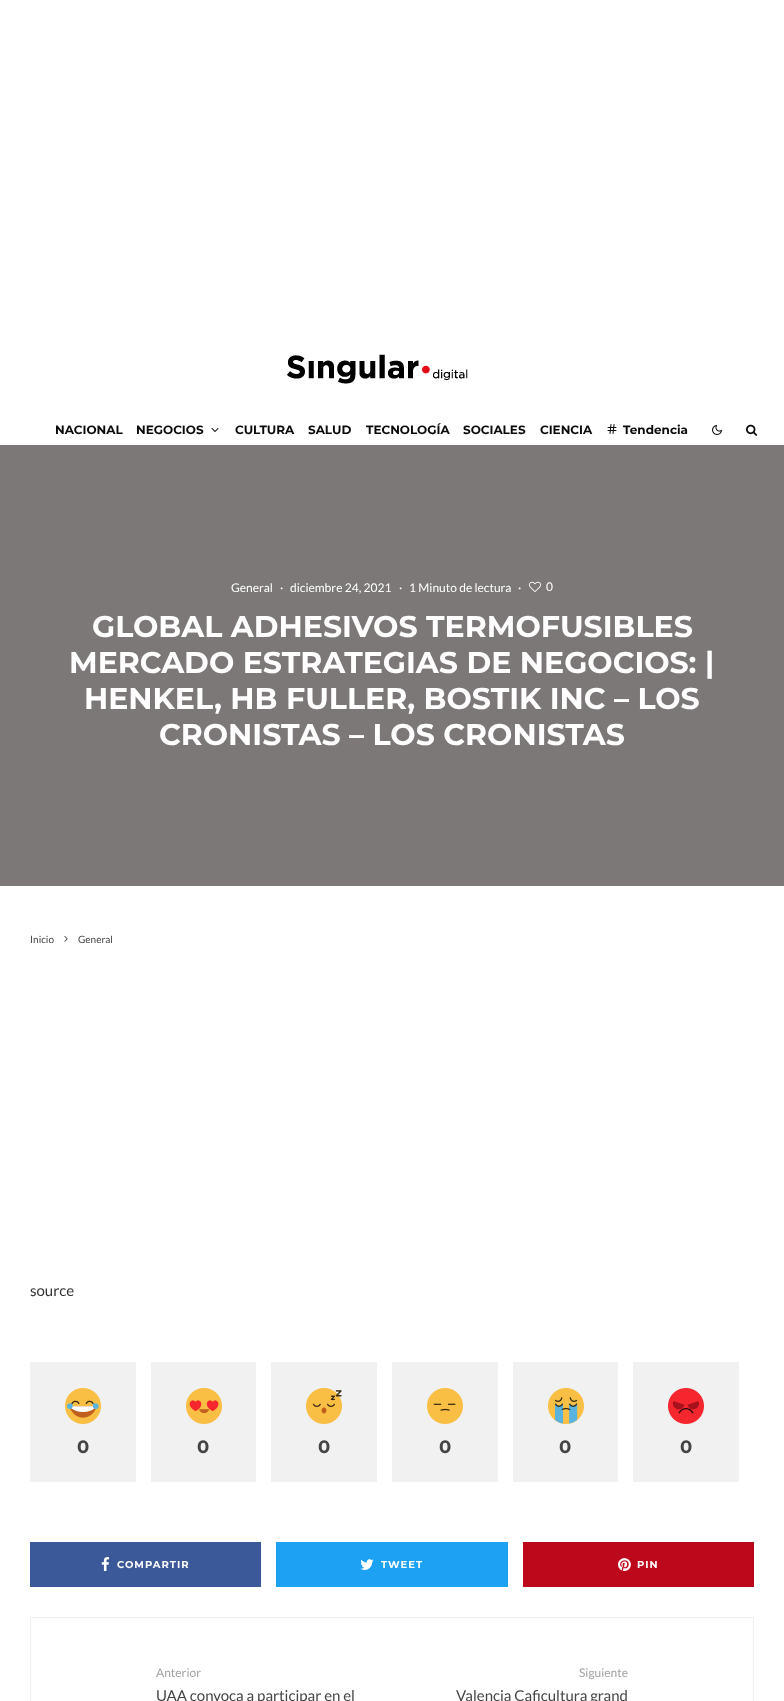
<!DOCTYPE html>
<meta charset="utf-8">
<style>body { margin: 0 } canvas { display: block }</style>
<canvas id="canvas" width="784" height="1701"></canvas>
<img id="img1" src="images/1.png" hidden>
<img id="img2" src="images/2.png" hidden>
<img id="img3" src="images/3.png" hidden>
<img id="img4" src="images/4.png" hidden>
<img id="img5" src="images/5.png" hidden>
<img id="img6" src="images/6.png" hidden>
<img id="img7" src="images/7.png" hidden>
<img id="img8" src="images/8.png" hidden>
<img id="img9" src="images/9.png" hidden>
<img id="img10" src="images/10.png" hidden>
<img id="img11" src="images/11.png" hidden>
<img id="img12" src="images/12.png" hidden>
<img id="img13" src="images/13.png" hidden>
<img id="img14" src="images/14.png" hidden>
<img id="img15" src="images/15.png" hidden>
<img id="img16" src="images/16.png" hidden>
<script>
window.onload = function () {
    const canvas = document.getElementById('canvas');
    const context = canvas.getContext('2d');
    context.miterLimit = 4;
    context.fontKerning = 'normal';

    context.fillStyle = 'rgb(255, 255, 255)';
    context.fillRect(0, 0, 784, 1701);
    context.drawImage(document.getElementById('img1'), 287, 354, 181, 30);
    context.drawImage(document.getElementById('img2'), 211, 428, 8, 4);
    context.drawImage(document.getElementById('img3'), 607, 424, 10, 10);
    context.drawImage(document.getElementById('img4'), 712, 425, 10, 10);
    context.drawImage(document.getElementById('img5'), 746, 424, 12, 12);
    context.fillStyle = 'rgb(125, 120, 120)';
    context.fillRect(0, 445, 784, 441);
    context.drawImage(document.getElementById('img6'), 529, 581, 12, 11);
    context.drawImage(document.getElementById('img7'), 64, 936, 4, 6);
    context.fillStyle = 'rgb(241, 241, 241)';
    context.fillRect(30, 1362, 106, 120);
    context.drawImage(document.getElementById('img8'), 65, 1388, 36, 36);
    context.fillRect(151, 1362, 105, 120);
    context.drawImage(document.getElementById('img9'), 186, 1388, 36, 36);
    context.fillRect(271, 1362, 106, 120);
    context.drawImage(document.getElementById('img10'), 306, 1388, 36, 36);
    context.fillRect(392, 1362, 106, 120);
    context.drawImage(document.getElementById('img11'), 427, 1388, 36, 36);
    context.fillRect(513, 1362, 105, 120);
    context.drawImage(document.getElementById('img12'), 548, 1388, 36, 36);
    context.fillRect(633, 1362, 106, 120);
    context.drawImage(document.getElementById('img13'), 668, 1388, 36, 36);
    context.fillStyle = 'rgb(59, 89, 152)';
    context.fillRect(30, 1542, 231, 45);
    context.drawImage(document.getElementById('img14'), 101, 1557, 9, 14);
    context.fillStyle = 'rgb(29, 161, 242)';
    context.fillRect(276, 1542, 232, 45);
    context.drawImage(document.getElementById('img15'), 360, 1559, 14, 11);
    context.fillStyle = 'rgb(189, 8, 28)';
    context.fillRect(523, 1542, 231, 45);
    context.drawImage(document.getElementById('img16'), 618, 1558, 13, 13);
    context.strokeStyle = 'rgb(238, 238, 238)';
    context.strokeRect(30.5, 1617.5, 723, 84);
    context.font = 'bold 12px Montserrat';
    context.fillStyle = 'rgb(10, 10, 10)';
    context.fillText('NACIONAL', 55, 434);
    context.fillText('NEGOCIOS', 136, 434);
    context.fillText('CULTURA', 235, 434);
    context.fillText('SALUD', 308, 434);
    context.fillText('TECNOLOGÍA', 366, 434);
    context.fillText('SOCIALES', 463, 434);
    context.fillText('CIENCIA', 540, 434);
    context.fillText('Tendencia', 623, 434);
    context.font = '12px Lato';
    context.fillStyle = 'rgb(255, 255, 255)';
    context.fillText('General', 231, 592);
    context.fillText('·', 280, 592);
    context.fillText('diciembre 24, 2021', 290, 592);
    context.fillText('·', 399, 592);
    context.fillText('1 Minuto de lectura', 409, 592);
    context.fillText('·', 518, 592);
    context.fillText('0', 546, 591);
    context.font = 'bold 30px Montserrat';
    context.fillText('GLOBAL ADHESIVOS TERMOFUSIBLES', 92, 637);
    context.fillText('MERCADO ESTRATEGIAS DE NEGOCIOS: |', 69, 673);
    context.fillText('HENKEL, HB FULLER, BOSTIK INC – LOS', 84, 709);
    context.fillText('CRONISTAS – LOS CRONISTAS', 159, 745);
    context.font = '10px Lato';
    context.fillStyle = 'rgb(68, 68, 68)';
    context.fillText('Inicio', 30, 943);
    context.fillText('General', 78, 943);
    context.font = '15px Lato';
    context.fillStyle = 'rgb(51, 51, 51)';
    context.fillText('source', 30, 1296);
    context.font = 'bold 18px Montserrat';
    context.fillStyle = 'rgb(68, 68, 68)';
    context.fillText('0', 77, 1453);
    context.fillText('0', 197, 1453);
    context.fillText('0', 318, 1453);
    context.fillText('0', 439, 1453);
    context.fillText('0', 559, 1453);
    context.fillText('0', 680, 1453);
    context.letterSpacing = '1px';
    context.font = 'bold 10px Montserrat';
    context.fillStyle = 'rgb(255, 255, 255)';
    context.fillText('COMPARTIR', 117, 1568);
    context.fillText('TWEET', 381, 1568);
    context.fillText('PIN', 637, 1568);
    context.letterSpacing = '0px';
    context.font = '12px Lato';
    context.fillStyle = 'rgb(162, 162, 162)';
    context.fillText('Anterior', 156, 1677);
    context.font = '15px Lato';
    context.fillStyle = 'rgb(68, 68, 68)';
    context.fillText('UAA convoca a participar en el', 156, 1701);
    context.font = '12px Lato';
    context.fillStyle = 'rgb(162, 162, 162)';
    context.fillText('Siguiente', 579, 1677);
    context.font = '15px Lato';
    context.fillStyle = 'rgb(68, 68, 68)';
    context.fillText('Valencia Caficultura grand', 456, 1701);
};
</script>
